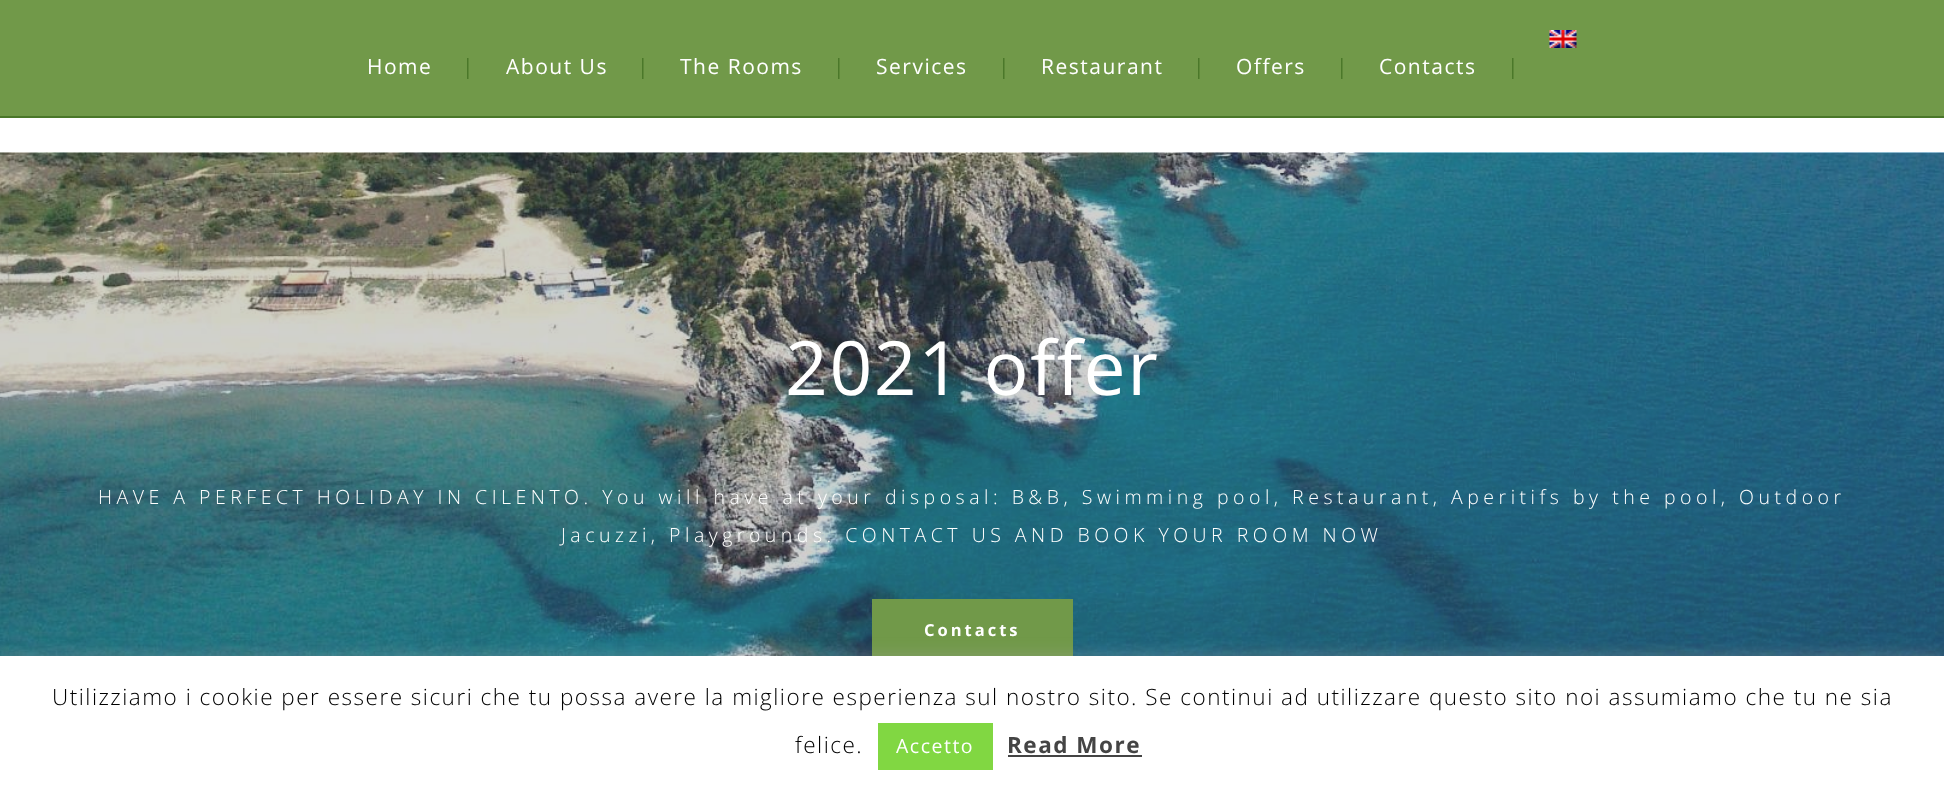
<!DOCTYPE html>
<meta charset="utf-8">
<style>body { margin: 0 } canvas { display: block }</style>
<canvas id="canvas" width="1944" height="795"></canvas>
<img id="img1" src="images/1.png" hidden>
<img id="img2" src="images/2.png" hidden>
<script>
window.onload = function () {
    const canvas = document.getElementById('canvas');
    const context = canvas.getContext('2d');
    context.miterLimit = 4;
    context.fontKerning = 'normal';

    context.fillStyle = 'rgb(255, 255, 255)';
    context.fillRect(0, 0, 1944, 795);
    context.fillStyle = 'rgb(113, 153, 73)';
    context.fillRect(0, 0, 1944, 116);
    context.fillStyle = 'rgb(74, 119, 41)';
    context.fillRect(0, 116, 1944, 2);
    context.drawImage(document.getElementById('img1'), 1549, 30, 28, 18);
    context.drawImage(document.getElementById('img2'), 0, 152, 1944, 504);
    context.fillStyle = 'rgb(113, 153, 73)';
    context.fillRect(872, 599, 201, 57);
    context.fillStyle = 'rgba(172, 171, 171, 0.3)';
    context.filter = 'blur(7.5px)';
    context.beginPath();
    context.rect(0, 654, 1944, 140);
    context.fill();
    context.filter = 'none';
    context.fillStyle = 'rgb(255, 255, 255)';
    context.fillRect(0, 656, 1944, 139);
    context.fillStyle = 'rgb(129, 215, 66)';
    context.fillRect(878, 723, 115, 47);
    context.fillStyle = 'rgb(68, 68, 68)';
    context.fillRect(1008, 755, 134, 2);
    context.letterSpacing = '1.5px';
    context.font = '21px Open Sans';
    context.fillStyle = 'rgb(255, 255, 255)';
    context.fillText('Home', 367, 74);
    context.fillStyle = 'rgb(74, 119, 41)';
    context.fillText('|', 462, 74);
    context.fillStyle = 'rgb(255, 255, 255)';
    context.fillText('About Us', 506, 74);
    context.fillStyle = 'rgb(74, 119, 41)';
    context.fillText('|', 637, 74);
    context.fillStyle = 'rgb(255, 255, 255)';
    context.fillText('The Rooms', 680, 74);
    context.fillStyle = 'rgb(74, 119, 41)';
    context.fillText('|', 833, 74);
    context.fillStyle = 'rgb(255, 255, 255)';
    context.fillText('Services', 876, 74);
    context.fillStyle = 'rgb(74, 119, 41)';
    context.fillText('|', 998, 74);
    context.fillStyle = 'rgb(255, 255, 255)';
    context.fillText('Restaurant', 1041, 74);
    context.fillStyle = 'rgb(74, 119, 41)';
    context.fillText('|', 1193, 74);
    context.fillStyle = 'rgb(255, 255, 255)';
    context.fillText('Offers', 1236, 74);
    context.fillStyle = 'rgb(74, 119, 41)';
    context.fillText('|', 1336, 74);
    context.fillStyle = 'rgb(255, 255, 255)';
    context.fillText('Contacts', 1379, 74);
    context.fillStyle = 'rgb(74, 119, 41)';
    context.fillText('|', 1507, 74);
    context.font = '75px Open Sans';
    context.fillStyle = 'rgb(255, 255, 255)';
    context.fillText('2021 offer', 785, 395);
    context.letterSpacing = '4.5px';
    context.font = '300 19.5px Open Sans';
    context.fillText('HAVE A PERFECT HOLIDAY IN CILENTO. You will have at your disposal: B&B, Swimming pool, Restaurant, Aperitifs by the pool, Outdoor', 98, 504);
    context.fillText('Jacuzzi, Playgrounds. CONTACT US AND BOOK YOUR ROOM NOW', 561, 542);
    context.letterSpacing = '3px';
    context.font = 'bold 16.5px Open Sans';
    context.fillText('Contacts', 924, 636);
    context.letterSpacing = '1.5px';
    context.font = '300 22.5px Open Sans';
    context.fillStyle = 'rgb(0, 0, 0)';
    context.fillText('Utilizziamo i cookie per essere sicuri che tu possa avere la migliore esperienza sul nostro sito. Se continui ad utilizzare questo sito noi assumiamo che tu ne sia', 52, 705);
    context.fillText('felice.', 795, 753);
    context.font = '19.5px Open Sans';
    context.fillStyle = 'rgb(255, 255, 255)';
    context.fillText('Accetto', 896, 753);
    context.font = 'bold 22.5px Open Sans';
    context.fillStyle = 'rgb(68, 68, 68)';
    context.fillText('Read More', 1007, 753);
};
</script>
